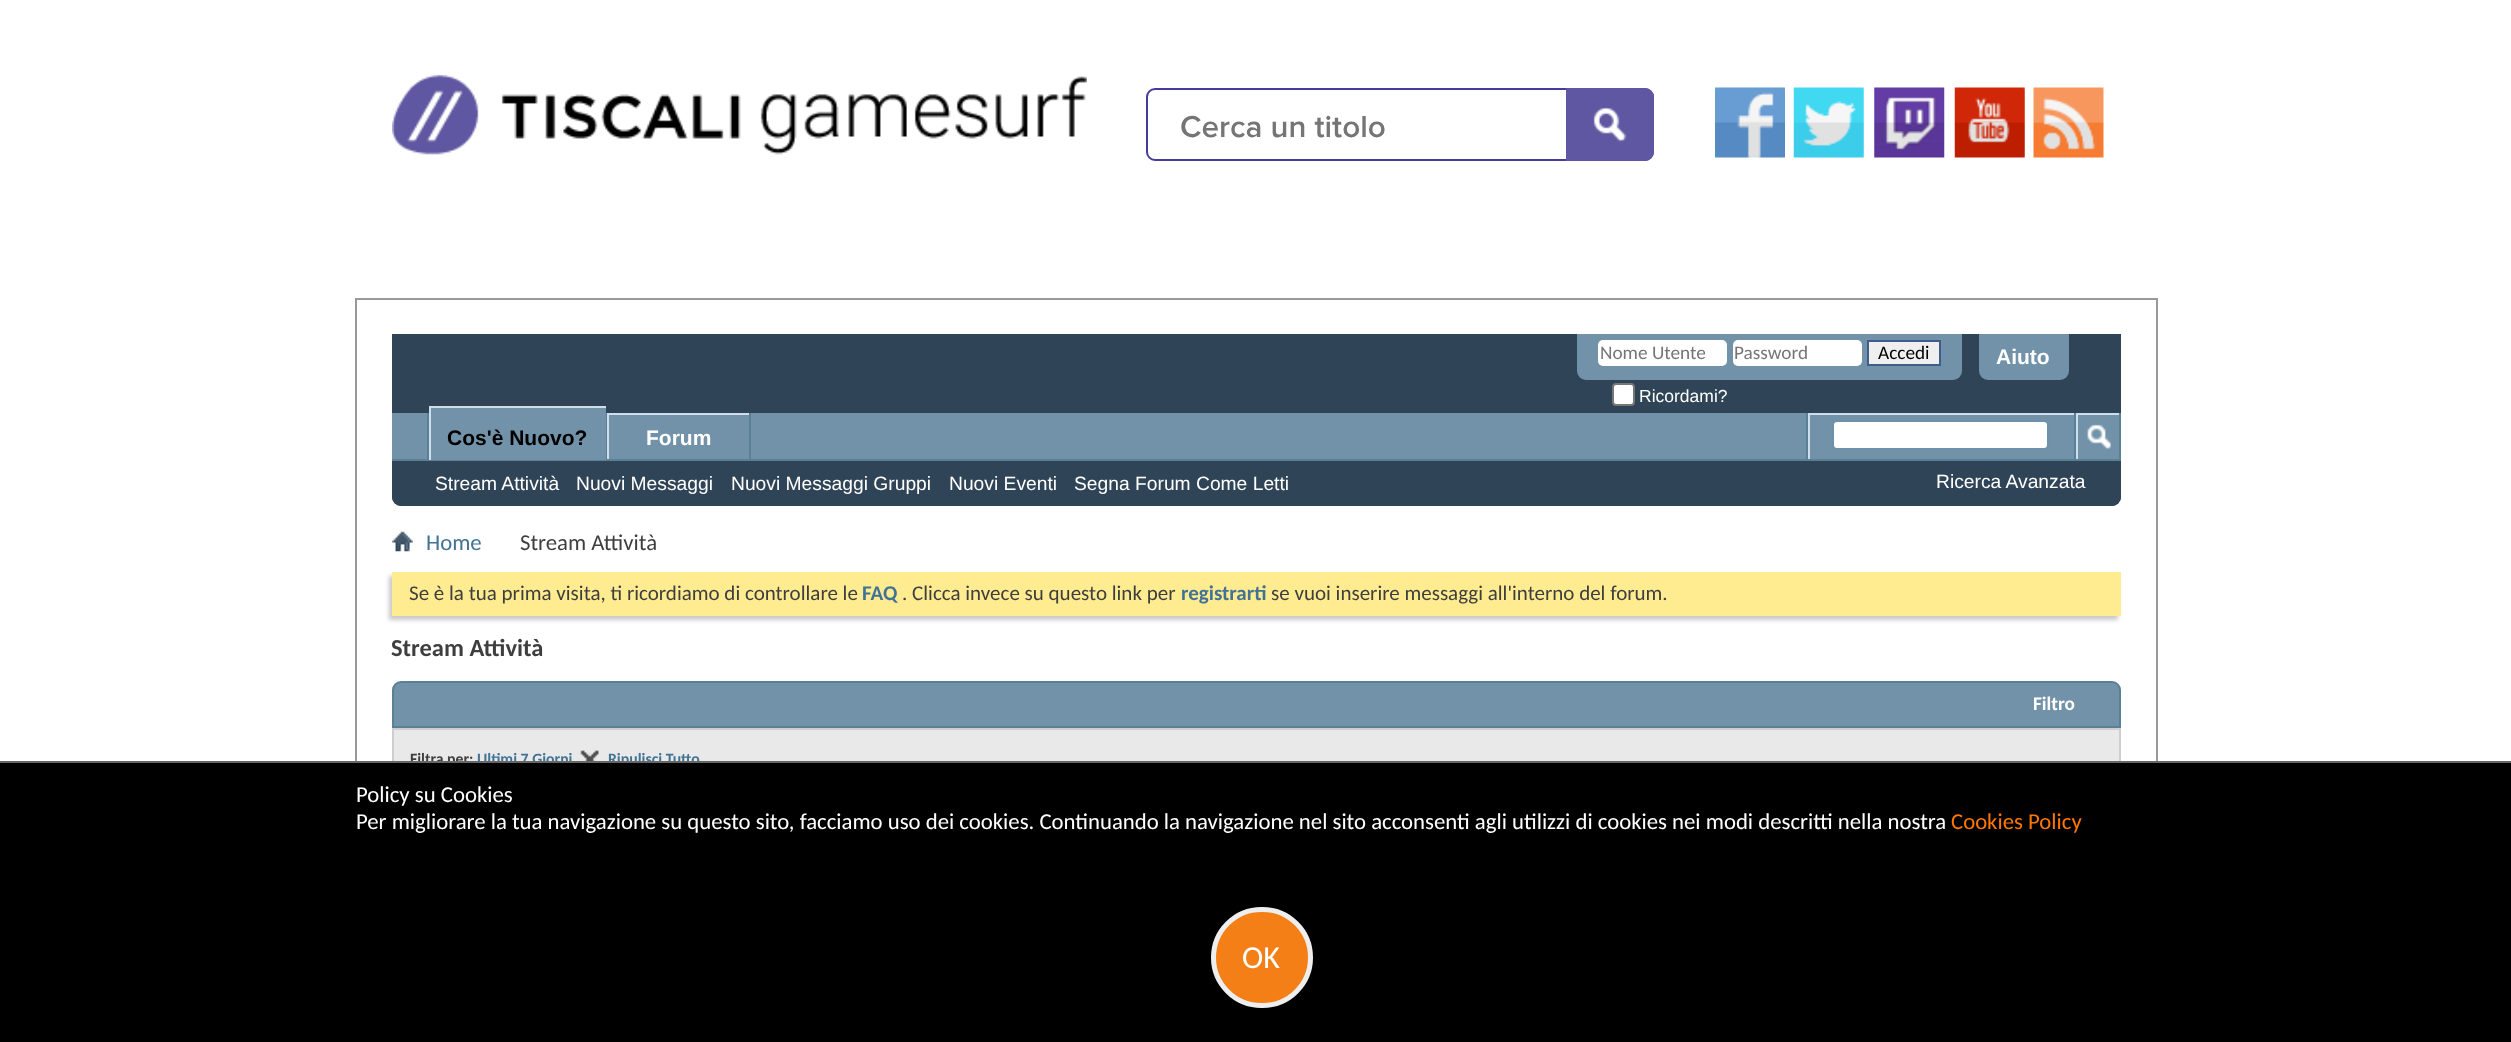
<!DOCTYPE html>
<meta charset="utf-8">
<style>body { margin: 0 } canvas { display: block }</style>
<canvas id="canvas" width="2511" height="1042"></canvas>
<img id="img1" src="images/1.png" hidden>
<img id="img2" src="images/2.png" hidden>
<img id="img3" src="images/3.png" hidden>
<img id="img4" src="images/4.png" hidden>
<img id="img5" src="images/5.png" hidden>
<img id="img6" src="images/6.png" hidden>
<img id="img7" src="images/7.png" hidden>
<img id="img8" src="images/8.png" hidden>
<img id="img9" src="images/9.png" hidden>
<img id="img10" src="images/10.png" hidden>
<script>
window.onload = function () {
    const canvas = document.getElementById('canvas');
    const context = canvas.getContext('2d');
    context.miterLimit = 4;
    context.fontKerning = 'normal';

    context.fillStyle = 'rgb(255, 255, 255)';
    context.fillRect(0, 0, 2511, 1042);
    context.drawImage(document.getElementById('img1'), 392, 74, 695, 81);
    context.beginPath();
    context.roundRect(1147, 89, 506, 71, 8);
    context.strokeStyle = 'rgb(70, 60, 153)';
    context.lineWidth = 2;
    context.stroke();
    context.fillStyle = 'rgb(95, 87, 161)';
    context.beginPath();
    context.roundRect(1566, 88, 88, 73, [0, 9, 9, 0]);
    context.fill();
    context.drawImage(document.getElementById('img2'), 1593, 107, 34, 35);
    context.drawImage(document.getElementById('img3'), 1715, 87, 70, 71);
    context.drawImage(document.getElementById('img4'), 1793, 87, 71, 71);
    context.drawImage(document.getElementById('img5'), 1874, 87, 71, 71);
    context.drawImage(document.getElementById('img6'), 1954, 87, 71, 71);
    context.drawImage(document.getElementById('img7'), 2033, 87, 71, 71);
    context.strokeStyle = 'rgb(153, 153, 153)';
    context.strokeRect(356, 299, 1801, 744);
    context.fillStyle = 'rgb(47, 68, 86)';
    context.beginPath();
    context.roundRect(392, 334, 1729, 172, [0, 0, 9, 9]);
    context.fill();
    context.fillStyle = 'rgb(113, 146, 168)';
    context.beginPath();
    context.roundRect(1577, 334, 385, 46, [0, 0, 9, 9]);
    context.fill();
    context.fillStyle = 'rgb(255, 255, 255)';
    context.beginPath();
    context.roundRect(1598, 340, 129, 26, 5);
    context.fill();
    context.beginPath();
    context.roundRect(1733, 340, 129, 26, 5);
    context.fill();
    context.fillStyle = 'rgb(239, 239, 239)';
    context.beginPath();
    context.rect(1868, 341, 72, 24);
    context.fill();
    context.strokeStyle = 'rgb(65, 93, 141)';
    context.stroke();
    context.fillStyle = 'rgb(255, 255, 255)';
    context.beginPath();
    context.roundRect(1613, 384, 21, 21, 3);
    context.fill();
    context.strokeStyle = 'rgb(118, 118, 118)';
    context.stroke();
    context.fillStyle = 'rgb(113, 146, 168)';
    context.beginPath();
    context.roundRect(1979, 334, 90, 46, [0, 0, 9, 9]);
    context.fill();
    context.fillStyle = 'rgb(47, 68, 86)';
    context.beginPath();
    context.roundRect(392, 413, 1729, 93, [0, 0, 9, 9]);
    context.fill();
    context.fillStyle = 'rgb(113, 146, 168)';
    context.fillRect(392, 413, 1727, 46);
    context.fillStyle = 'rgb(90, 127, 151)';
    context.fillRect(606, 413, 1, 46);
    context.fillRect(427, 413, 2, 46);
    context.fillRect(749, 413, 2, 47);
    context.fillStyle = 'rgb(206, 223, 235)';
    context.fillRect(607, 413, 142, 2);
    context.fillRect(607, 413, 2, 47);
    context.fillStyle = 'rgb(90, 127, 151)';
    context.fillRect(392, 459, 1729, 2);
    context.fillStyle = 'rgb(113, 146, 168)';
    context.fillRect(431, 408, 175, 52);
    context.fillStyle = 'rgb(206, 223, 235)';
    context.fillRect(429, 406, 177, 2);
    context.fillRect(429, 406, 2, 54);
    context.fillStyle = 'rgb(90, 127, 151)';
    context.fillRect(1806, 413, 2, 46);
    context.fillStyle = 'rgb(206, 223, 235)';
    context.fillRect(1808, 413, 266, 2);
    context.fillRect(1808, 413, 2, 46);
    context.fillStyle = 'rgb(255, 255, 255)';
    context.beginPath();
    context.roundRect(1833, 421, 215, 28, 4);
    context.fill();
    context.strokeStyle = 'rgb(107, 145, 171)';
    context.stroke();
    context.fillStyle = 'rgb(90, 127, 151)';
    context.fillRect(2119, 413, 2, 46);
    context.fillRect(2074, 413, 2, 46);
    context.fillStyle = 'rgb(206, 223, 235)';
    context.fillRect(2076, 413, 43, 2);
    context.fillRect(2076, 413, 2, 46);
    context.drawImage(document.getElementById('img8'), 2087, 424, 24, 26);
    context.drawImage(document.getElementById('img9'), 392, 531, 21, 21);
    context.fillStyle = 'rgb(200, 200, 200)';
    context.filter = 'blur(2px)';
    context.beginPath();
    context.rect(389, 576, 1729, 44);
    context.fill();
    context.filter = 'none';
    context.fillStyle = 'rgb(255, 235, 144)';
    context.fillRect(392, 572, 1729, 44);
    context.fillStyle = 'rgb(113, 146, 168)';
    context.beginPath();
    context.roundRect(393, 682, 1727, 45, [8, 8, 0, 0]);
    context.fill();
    context.strokeStyle = 'rgb(90, 127, 151)';
    context.stroke();
    context.fillStyle = 'rgb(233, 233, 233)';
    context.fillRect(394, 730, 1725, 31);
    context.strokeStyle = 'rgb(206, 206, 206)';
    context.strokeRect(393, 729, 1727, 59);
    context.drawImage(document.getElementById('img10'), 580, 750, 19, 11);
    context.font = '600 31.5px Proxima Nova';
    context.fillStyle = 'rgb(117, 117, 117)';
    context.fillText('Cerca un titolo', 1180, 137);
    context.font = '19.25px Carlito';
    context.fillText('Nome Utente', 1600, 359);
    context.fillText('Password', 1734, 359);
    context.fillStyle = 'rgb(0, 0, 0)';
    context.fillText('Accedi', 1878, 359);
    context.font = '17.5px Liberation Sans';
    context.fillStyle = 'rgb(255, 255, 255)';
    context.fillText('Ricordami?', 1639, 402);
    context.font = 'bold 21px Liberation Sans';
    context.fillText('Aiuto', 1996, 364);
    context.fillStyle = 'rgb(0, 0, 0)';
    context.fillText('Cos\'è Nuovo?', 447, 445);
    context.fillStyle = 'rgb(255, 255, 255)';
    context.fillText('Forum', 646, 445);
    context.font = '19.25px Liberation Sans';
    context.fillText('Stream Attività', 435, 490);
    context.fillText('Nuovi Messaggi', 576, 490);
    context.fillText('Nuovi Messaggi Gruppi', 731, 490);
    context.fillText('Nuovi Eventi', 949, 490);
    context.fillText('Segna Forum Come Letti', 1074, 490);
    context.fillText('Ricerca Avanzata', 1936, 488);
    context.font = '22.75px Carlito';
    context.fillStyle = 'rgb(65, 115, 148)';
    context.fillText('Home', 426, 550);
    context.fillStyle = 'rgb(62, 62, 62)';
    context.fillText('Stream Attività', 520, 550);
    context.font = '21px Carlito';
    context.fillText('Se è la tua prima visita, ti ricordiamo di controllare le', 409, 600);
    context.font = 'bold 21px Carlito';
    context.fillStyle = 'rgb(65, 115, 148)';
    context.fillText('FAQ', 862, 600);
    context.font = '21px Carlito';
    context.fillStyle = 'rgb(62, 62, 62)';
    context.fillText('. Clicca invece su questo link per', 902, 600);
    context.font = 'bold 21px Carlito';
    context.fillStyle = 'rgb(65, 115, 148)';
    context.fillText('registrarti', 1181, 600);
    context.font = '21px Carlito';
    context.fillStyle = 'rgb(62, 62, 62)';
    context.fillText('se vuoi inserire messaggi all\'interno del forum.', 1271, 600);
    context.font = 'bold 24.5px Carlito';
    context.fillText('Stream Attività', 391, 656);
    context.font = 'bold 19.25px Carlito';
    context.fillStyle = 'rgb(255, 255, 255)';
    context.fillText('Filtro', 2033, 710);
    context.font = 'bold 15.75px Carlito';
    context.fillStyle = 'rgb(62, 62, 62)';
    context.fillText('Filtra per:', 410, 764);
    context.fillStyle = 'rgb(65, 115, 148)';
    context.fillText('Ultimi 7 Giorni', 477, 764);
    context.fillText('Ripulisci Tutto', 608, 764);
    context.fillStyle = 'rgb(0, 0, 0)';
    context.fillRect(0, 763, 2511, 279);
    context.fillStyle = 'rgb(102, 102, 102)';
    context.fillRect(0, 761, 2511, 2);
    context.font = '22.75px Carlito';
    context.fillStyle = 'rgb(255, 255, 255)';
    context.fillText('Policy su Cookies', 356, 802);
    context.fillText('Per migliorare la tua navigazione su questo sito, facciamo uso dei cookies. Continuando la navigazione nel sito acconsenti agli utilizzi di cookies nei modi descritti nella nostra', 356, 829);
    context.fillStyle = 'rgb(255, 120, 2)';
    context.fillText('Cookies Policy', 1951, 829);
    context.fillStyle = 'rgb(245, 127, 23)';
    context.beginPath();
    context.roundRect(1213.5, 909.5, 97, 96, 48);
    context.fill();
    context.strokeStyle = 'rgb(238, 238, 238)';
    context.lineWidth = 5;
    context.stroke();
    context.font = '32px Carlito';
    context.fillStyle = 'rgb(255, 255, 255)';
    context.fillText('OK', 1242, 968);
};
</script>
